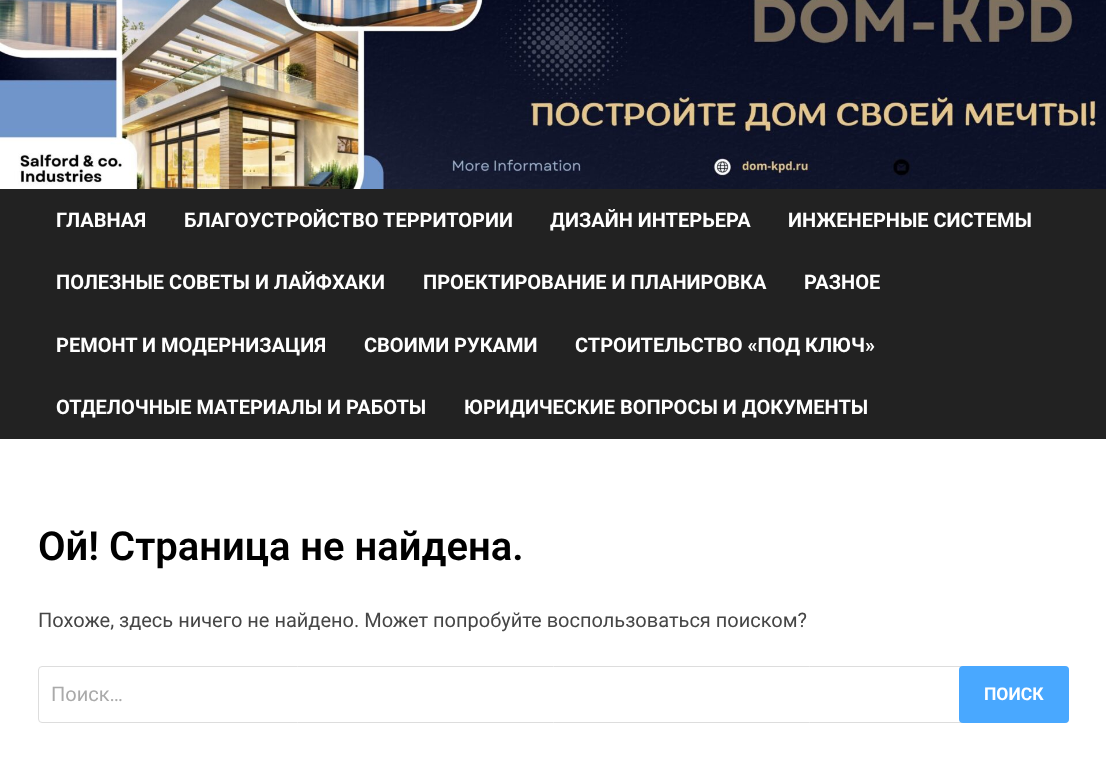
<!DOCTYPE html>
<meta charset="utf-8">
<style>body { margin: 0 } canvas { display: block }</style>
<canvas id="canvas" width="1106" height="774"></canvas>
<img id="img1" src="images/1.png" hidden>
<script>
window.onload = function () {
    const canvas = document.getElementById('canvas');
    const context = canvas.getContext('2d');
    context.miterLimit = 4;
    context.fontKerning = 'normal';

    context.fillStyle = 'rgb(255, 255, 255)';
    context.fillRect(0, 0, 1106, 774);
    context.drawImage(document.getElementById('img1'), 0, 0, 1106, 189);
    context.fillStyle = 'rgb(34, 34, 34)';
    context.fillRect(0, 189, 1106, 250);
    context.beginPath();
    context.roundRect(38.5, 666.5, 1030, 56, 3.5);
    context.strokeStyle = 'rgb(221, 221, 221)';
    context.stroke();
    context.fillStyle = 'rgb(73, 168, 255)';
    context.beginPath();
    context.roundRect(959, 666, 110, 57, 4);
    context.fill();
    context.font = 'bold 20px Roboto';
    context.fillStyle = 'rgb(255, 255, 255)';
    context.fillText('ГЛАВНАЯ', 56, 227);
    context.fillText('БЛАГОУСТРОЙСТВО ТЕРРИТОРИИ', 184, 227);
    context.fillText('ДИЗАЙН ИНТЕРЬЕРА', 550, 227);
    context.fillText('ИНЖЕНЕРНЫЕ СИСТЕМЫ', 788, 227);
    context.fillText('ПОЛЕЗНЫЕ СОВЕТЫ И ЛАЙФХАКИ', 56, 289);
    context.fillText('ПРОЕКТИРОВАНИЕ И ПЛАНИРОВКА', 423, 289);
    context.fillText('РАЗНОЕ', 804, 289);
    context.fillText('РЕМОНТ И МОДЕРНИЗАЦИЯ', 56, 352);
    context.fillText('СВОИМИ РУКАМИ', 364, 352);
    context.fillText('СТРОИТЕЛЬСТВО «ПОД КЛЮЧ»', 575, 352);
    context.fillText('ОТДЕЛОЧНЫЕ МАТЕРИАЛЫ И РАБОТЫ', 56, 414);
    context.fillText('ЮРИДИЧЕСКИЕ ВОПРОСЫ И ДОКУМЕНТЫ', 464, 414);
    context.font = '600 40px Roboto';
    context.fillStyle = 'rgb(0, 0, 0)';
    context.fillText('Ой! Страница не найдена.', 38, 560);
    context.font = '20px Roboto';
    context.fillStyle = 'rgb(70, 70, 70)';
    context.fillText('Похоже, здесь ничего не найдено. Может попробуйте воспользоваться поиском?', 38, 627);
    context.fillStyle = 'rgb(170, 170, 170)';
    context.fillText('Поиск…', 51, 701);
    context.font = 'bold 17.5px Roboto';
    context.fillStyle = 'rgb(255, 255, 255)';
    context.fillText('ПОИСК', 984, 700);
};
</script>
